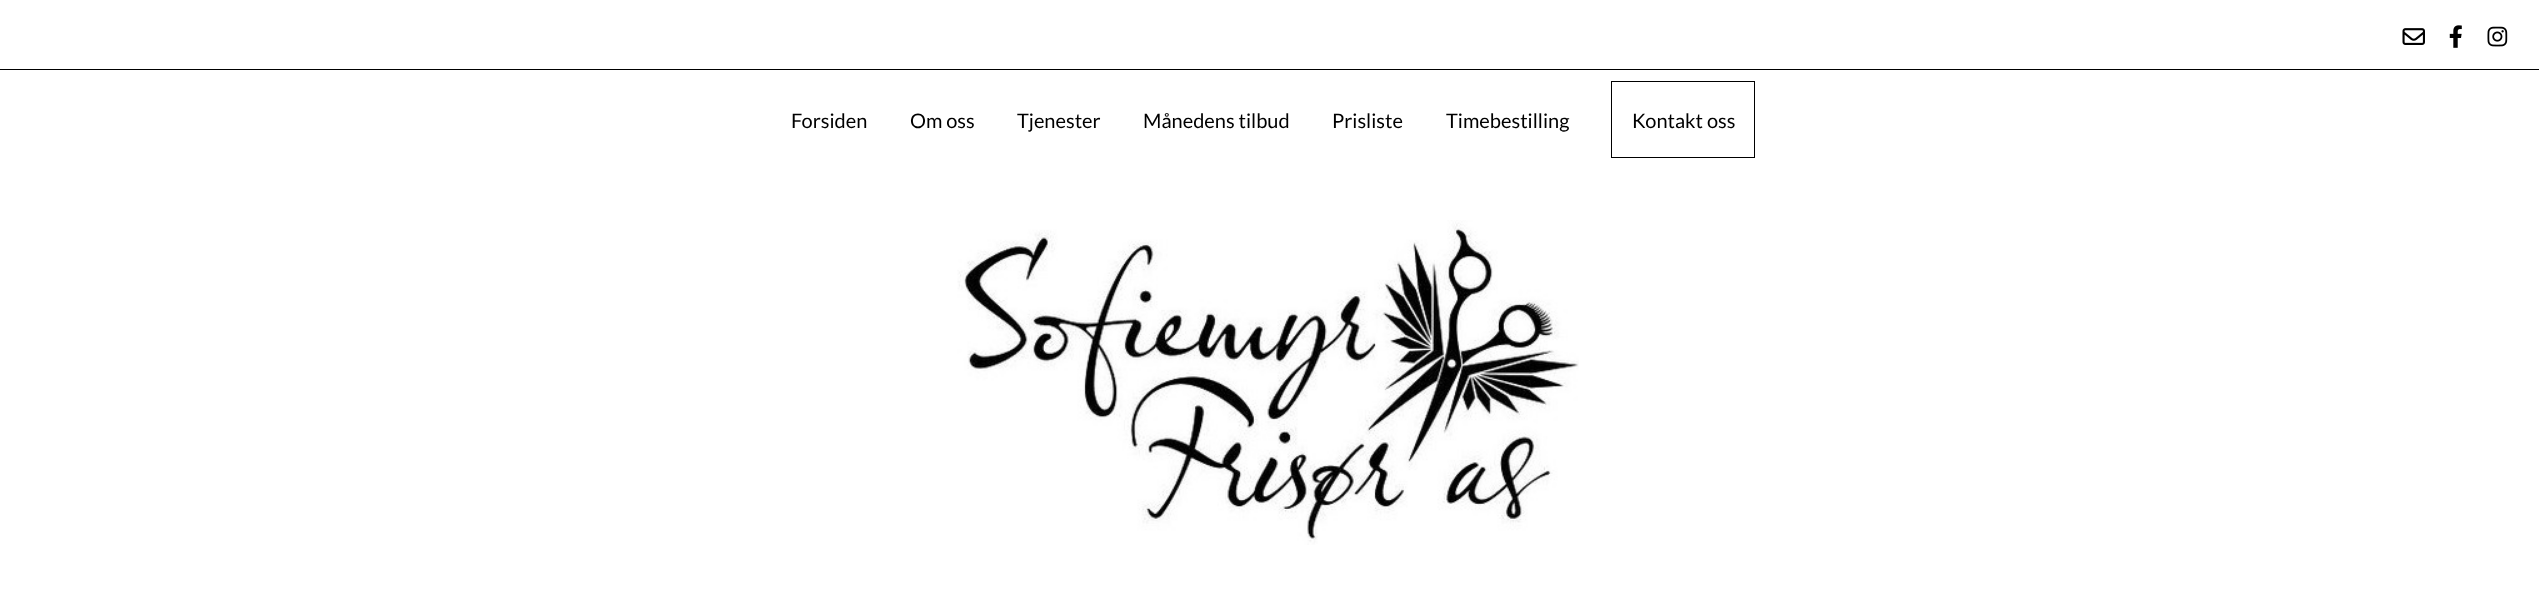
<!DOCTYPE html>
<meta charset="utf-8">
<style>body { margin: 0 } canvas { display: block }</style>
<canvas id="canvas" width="2539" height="611"></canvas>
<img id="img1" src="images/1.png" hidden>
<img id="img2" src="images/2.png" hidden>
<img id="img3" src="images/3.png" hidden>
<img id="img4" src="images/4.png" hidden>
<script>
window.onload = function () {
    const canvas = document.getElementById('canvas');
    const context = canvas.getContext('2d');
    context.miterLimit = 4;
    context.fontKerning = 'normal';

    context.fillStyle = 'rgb(255, 255, 255)';
    context.fillRect(0, 0, 2539, 611);
    context.fillStyle = 'rgb(0, 0, 0)';
    context.fillRect(0, 69, 2539, 1);
    context.drawImage(document.getElementById('img1'), 2402, 28, 23, 17);
    context.drawImage(document.getElementById('img2'), 2449, 25, 13, 23);
    context.drawImage(document.getElementById('img3'), 2487, 26, 21, 21);
    context.strokeStyle = 'rgb(0, 0, 0)';
    context.strokeRect(1611.5, 81.5, 143, 76);
    context.drawImage(document.getElementById('img4'), 957, 220, 622, 325);
    context.font = '20px Lato';
    context.fillText('Forsiden', 791, 128);
    context.fillText('Om oss', 910, 128);
    context.fillText('Tjenester', 1017, 128);
    context.fillText('Månedens tilbud', 1143, 128);
    context.fillText('Prisliste', 1332, 128);
    context.fillText('Timebestilling', 1446, 128);
    context.fillText('Kontakt oss', 1632, 128);
};
</script>
